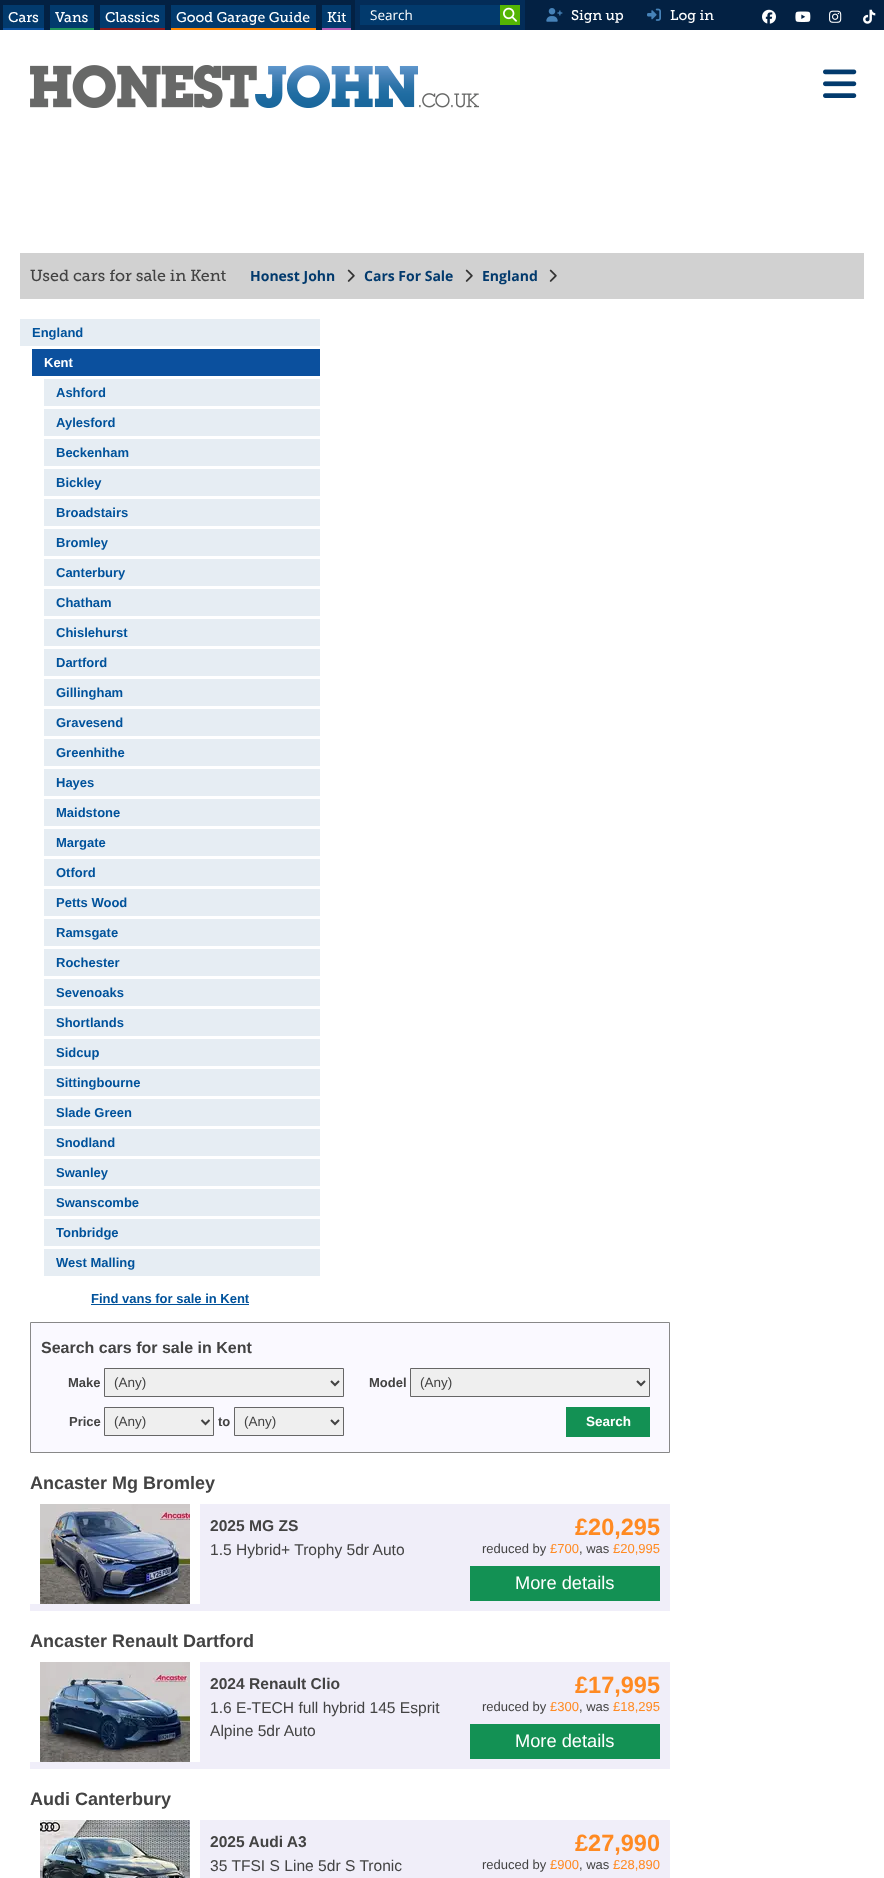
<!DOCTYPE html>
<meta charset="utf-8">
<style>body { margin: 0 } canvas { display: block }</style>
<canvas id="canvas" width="884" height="1878"></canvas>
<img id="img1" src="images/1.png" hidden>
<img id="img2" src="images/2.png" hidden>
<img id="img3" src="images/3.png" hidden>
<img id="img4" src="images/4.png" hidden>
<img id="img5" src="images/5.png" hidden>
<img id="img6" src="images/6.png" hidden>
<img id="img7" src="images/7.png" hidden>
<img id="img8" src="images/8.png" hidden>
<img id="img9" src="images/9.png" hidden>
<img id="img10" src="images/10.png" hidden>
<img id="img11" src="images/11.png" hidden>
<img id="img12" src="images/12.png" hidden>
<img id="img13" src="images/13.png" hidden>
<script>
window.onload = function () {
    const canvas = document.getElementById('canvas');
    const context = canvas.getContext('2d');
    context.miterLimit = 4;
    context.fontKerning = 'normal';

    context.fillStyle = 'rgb(3, 33, 67)';
    context.fillRect(0, 0, 884, 1878);
    context.fillStyle = 'rgb(2, 58, 109)';
    context.fillRect(3, 5, 41, 23);
    context.fillStyle = 'rgb(11, 80, 158)';
    context.fillRect(3, 28, 41, 2);
    context.fillStyle = 'rgb(2, 58, 109)';
    context.fillRect(50, 5, 44, 23);
    context.fillStyle = 'rgb(32, 147, 92)';
    context.fillRect(50, 28, 44, 2);
    context.fillStyle = 'rgb(2, 58, 109)';
    context.fillRect(100, 5, 65, 23);
    context.fillStyle = 'rgb(143, 27, 27)';
    context.fillRect(100, 28, 65, 2);
    context.fillStyle = 'rgb(2, 58, 109)';
    context.fillRect(171, 5, 145, 23);
    context.fillStyle = 'rgb(255, 133, 0)';
    context.fillRect(171, 28, 145, 2);
    context.fillStyle = 'rgb(2, 58, 109)';
    context.fillRect(322, 5, 29, 23);
    context.fillStyle = 'rgb(180, 94, 184)';
    context.fillRect(322, 28, 29, 2);
    context.fillStyle = 'rgb(2, 58, 109)';
    context.fillRect(360, 5, 140, 20);
    context.beginPath();
    context.moveTo(357.5, 2.5);
    context.lineTo(522.5, 2.5);
    context.lineTo(522.5, 27.5);
    context.lineTo(357.5, 27.5);
    context.closePath();
    context.strokeStyle = 'rgb(3, 44, 88)';
    context.lineWidth = 5;
    context.stroke();
    context.fillStyle = 'rgb(84, 181, 4)';
    context.fillRect(500, 5, 20, 20);
    context.drawImage(document.getElementById('img1'), 503, 7, 14, 15);
    context.drawImage(document.getElementById('img2'), 546, 8, 17, 14);
    context.drawImage(document.getElementById('img3'), 647, 8, 14, 13);
    context.drawImage(document.getElementById('img4'), 762, 9, 14, 15);
    context.drawImage(document.getElementById('img5'), 795, 11, 16, 11);
    context.drawImage(document.getElementById('img6'), 829, 10, 13, 13);
    context.drawImage(document.getElementById('img7'), 863, 9, 13, 15);
    context.fillStyle = 'rgb(255, 255, 255)';
    context.fillRect(0, 30, 884, 1848);
    context.drawImage(document.getElementById('img8'), 30, 65, 449, 43);
    context.drawImage(document.getElementById('img9'), 823, 69, 34, 29);
    context.fillStyle = 'rgb(209, 209, 209)';
    context.fillRect(20, 253, 844, 46);
    context.drawImage(document.getElementById('img10'), 347, 269, 8, 13);
    context.drawImage(document.getElementById('img10'), 465, 269, 8, 13);
    context.drawImage(document.getElementById('img10'), 549, 269, 8, 13);
    context.fillStyle = 'rgb(230, 237, 243)';
    context.fillRect(20, 319, 300, 27);
    context.fillStyle = 'rgb(11, 80, 158)';
    context.fillRect(32, 349, 288, 27);
    context.fillStyle = 'rgb(230, 237, 243)';
    context.fillRect(44, 379, 276, 27);
    context.fillRect(44, 409, 276, 27);
    context.fillRect(44, 439, 276, 27);
    context.fillRect(44, 469, 276, 27);
    context.fillRect(44, 499, 276, 27);
    context.fillRect(44, 529, 276, 27);
    context.fillRect(44, 559, 276, 27);
    context.fillRect(44, 589, 276, 27);
    context.fillRect(44, 619, 276, 27);
    context.fillRect(44, 649, 276, 27);
    context.fillRect(44, 679, 276, 27);
    context.fillRect(44, 709, 276, 27);
    context.fillRect(44, 739, 276, 27);
    context.fillRect(44, 769, 276, 27);
    context.fillRect(44, 799, 276, 27);
    context.fillRect(44, 829, 276, 27);
    context.fillRect(44, 859, 276, 27);
    context.fillRect(44, 889, 276, 27);
    context.fillRect(44, 919, 276, 27);
    context.fillRect(44, 949, 276, 27);
    context.fillRect(44, 979, 276, 27);
    context.fillRect(44, 1009, 276, 27);
    context.fillRect(44, 1039, 276, 27);
    context.fillRect(44, 1069, 276, 27);
    context.fillRect(44, 1099, 276, 27);
    context.fillRect(44, 1129, 276, 27);
    context.fillRect(44, 1159, 276, 27);
    context.fillRect(44, 1189, 276, 27);
    context.fillRect(44, 1219, 276, 27);
    context.fillRect(44, 1249, 276, 27);
    context.fillStyle = 'rgb(0, 82, 155)';
    context.fillRect(91, 1304, 158, 1);
    context.fillStyle = 'rgb(250, 249, 255)';
    context.beginPath();
    context.rect(30.5, 1322.5, 639, 130);
    context.fill();
    context.strokeStyle = 'rgb(136, 136, 136)';
    context.lineWidth = 1;
    context.stroke();
    context.fillStyle = 'rgb(239, 239, 239)';
    context.beginPath();
    context.rect(104.5, 1368.5, 239, 28);
    context.fill();
    context.strokeStyle = 'rgb(102, 102, 102)';
    context.stroke();
    context.beginPath();
    context.moveTo(331, 1381);
    context.lineTo(335, 1385);
    context.lineTo(339, 1381);
    context.strokeStyle = 'rgb(67, 67, 67)';
    context.lineWidth = 2;
    context.stroke();
    context.beginPath();
    context.rect(410.5, 1368.5, 239, 28);
    context.fill();
    context.strokeStyle = 'rgb(102, 102, 102)';
    context.lineWidth = 1;
    context.stroke();
    context.beginPath();
    context.moveTo(637, 1381);
    context.lineTo(641, 1385);
    context.lineTo(645, 1381);
    context.strokeStyle = 'rgb(67, 67, 67)';
    context.lineWidth = 2;
    context.stroke();
    context.beginPath();
    context.rect(104.5, 1407.5, 109, 28);
    context.fill();
    context.strokeStyle = 'rgb(102, 102, 102)';
    context.lineWidth = 1;
    context.stroke();
    context.beginPath();
    context.moveTo(201.5, 1420);
    context.lineTo(205.5, 1424);
    context.lineTo(209.5, 1420);
    context.strokeStyle = 'rgb(67, 67, 67)';
    context.lineWidth = 2;
    context.stroke();
    context.beginPath();
    context.rect(234.5, 1407.5, 109, 28);
    context.fill();
    context.strokeStyle = 'rgb(102, 102, 102)';
    context.lineWidth = 1;
    context.stroke();
    context.beginPath();
    context.moveTo(331, 1420);
    context.lineTo(335, 1424);
    context.lineTo(339, 1420);
    context.strokeStyle = 'rgb(67, 67, 67)';
    context.lineWidth = 2;
    context.stroke();
    context.fillStyle = 'rgb(19, 145, 84)';
    context.fillRect(566, 1407, 84, 30);
    context.fillStyle = 'rgb(240, 238, 249)';
    context.fillRect(30, 1504, 640, 107);
    context.fillStyle = 'rgb(255, 255, 255)';
    context.fillRect(190, 1504, 10, 100);
    context.fillRect(30, 1504, 10, 100);
    context.drawImage(document.getElementById('img11'), 40, 1504, 150, 100);
    context.fillStyle = 'rgb(19, 145, 84)';
    context.fillRect(470, 1566, 190, 35);
    context.fillStyle = 'rgb(240, 238, 249)';
    context.fillRect(30, 1662, 640, 107);
    context.fillStyle = 'rgb(255, 255, 255)';
    context.fillRect(190, 1662, 10, 100);
    context.fillRect(30, 1662, 10, 100);
    context.drawImage(document.getElementById('img12'), 40, 1662, 150, 100);
    context.fillStyle = 'rgb(19, 145, 84)';
    context.fillRect(470, 1724, 190, 35);
    context.fillStyle = 'rgb(240, 238, 249)';
    context.fillRect(200, 1820, 470, 58);
    context.drawImage(document.getElementById('img13'), 40, 1820, 150, 58);
    context.font = '14px Museo Slab';
    context.fillStyle = 'rgb(255, 255, 255)';
    context.fillText('Cars', 8, 22);
    context.fillText('Vans', 55, 22);
    context.fillText('Classics', 105, 22);
    context.fillText('Good Garage Guide', 176, 22);
    context.fillText('Kit', 327, 22);
    context.font = '13.5px Open Sans';
    context.fillText('Search', 370, 20);
    context.font = '14px Museo Slab';
    context.fillText('Sign up', 571, 20);
    context.fillText('Log in', 670, 20);
    context.font = '16px Museo Slab';
    context.fillStyle = 'rgb(67, 67, 67)';
    context.fillText('Used cars for sale in Kent', 30, 281);
    context.font = 'bold 14px Open Sans';
    context.fillStyle = 'rgb(2, 58, 109)';
    context.fillText('Honest John', 250, 281);
    context.fillText('Cars For Sale', 364, 281);
    context.fillText('England', 482, 281);
    context.font = 'bold 13px Liberation Sans';
    context.fillStyle = 'rgb(0, 82, 155)';
    context.fillText('England', 32, 337);
    context.fillStyle = 'rgb(255, 255, 255)';
    context.fillText('Kent', 44, 367);
    context.fillStyle = 'rgb(0, 82, 155)';
    context.fillText('Ashford', 56, 397);
    context.fillText('Aylesford', 56, 427);
    context.fillText('Beckenham', 56, 457);
    context.fillText('Bickley', 56, 487);
    context.fillText('Broadstairs', 56, 517);
    context.fillText('Bromley', 56, 547);
    context.fillText('Canterbury', 56, 577);
    context.fillText('Chatham', 56, 607);
    context.fillText('Chislehurst', 56, 637);
    context.fillText('Dartford', 56, 667);
    context.fillText('Gillingham', 56, 697);
    context.fillText('Gravesend', 56, 727);
    context.fillText('Greenhithe', 56, 757);
    context.fillText('Hayes', 56, 787);
    context.fillText('Maidstone', 56, 817);
    context.fillText('Margate', 56, 847);
    context.fillText('Otford', 56, 877);
    context.fillText('Petts Wood', 56, 907);
    context.fillText('Ramsgate', 56, 937);
    context.fillText('Rochester', 56, 967);
    context.fillText('Sevenoaks', 56, 997);
    context.fillText('Shortlands', 56, 1027);
    context.fillText('Sidcup', 56, 1057);
    context.fillText('Sittingbourne', 56, 1087);
    context.fillText('Slade Green', 56, 1117);
    context.fillText('Snodland', 56, 1147);
    context.fillText('Swanley', 56, 1177);
    context.fillText('Swanscombe', 56, 1207);
    context.fillText('Tonbridge', 56, 1237);
    context.fillText('West Malling', 56, 1267);
    context.fillText('Find vans for sale in Kent', 91, 1303);
    context.font = 'bold 16px Liberation Sans';
    context.fillStyle = 'rgb(67, 67, 67)';
    context.fillText('Search cars for sale in Kent', 41, 1353);
    context.font = 'bold 13px Liberation Sans';
    context.fillText('Make', 68, 1387);
    context.font = '13.5px Liberation Sans';
    context.fillText('(Any)', 114, 1387);
    context.font = 'bold 13px Liberation Sans';
    context.fillText('Model', 369, 1387);
    context.font = '13.5px Liberation Sans';
    context.fillText('(Any)', 420, 1387);
    context.font = 'bold 13px Liberation Sans';
    context.fillText('Price', 69, 1426);
    context.font = '13.5px Liberation Sans';
    context.fillText('(Any)', 114, 1426);
    context.font = 'bold 13px Liberation Sans';
    context.fillText('to', 218, 1426);
    context.font = '13.5px Liberation Sans';
    context.fillText('(Any)', 244, 1426);
    context.font = 'bold 13.5px Liberation Sans';
    context.fillStyle = 'rgb(255, 255, 255)';
    context.fillText('Search', 586, 1426);
    context.font = 'bold 18px Liberation Sans';
    context.fillStyle = 'rgb(67, 67, 67)';
    context.fillText('Ancaster Mg Bromley', 30, 1489);
    context.font = 'bold 15.6px Liberation Sans';
    context.fillText('2025 MG ZS', 210, 1531);
    context.font = 'bold 23.5px Liberation Sans';
    context.fillStyle = 'rgb(255, 138, 34)';
    context.fillText('£20,295', 575, 1535);
    context.font = '13px Liberation Sans';
    context.fillStyle = 'rgb(67, 67, 67)';
    context.fillText('reduced by', 482, 1553);
    context.fillStyle = 'rgb(255, 138, 34)';
    context.fillText('£700', 550, 1553);
    context.fillStyle = 'rgb(67, 67, 67)';
    context.fillText(', was', 579, 1553);
    context.fillStyle = 'rgb(255, 138, 34)';
    context.fillText('£20,995', 613, 1553);
    context.font = '18.25px Liberation Sans';
    context.fillStyle = 'rgb(255, 255, 255)';
    context.fillText('More details', 515, 1589);
    context.font = '15.6px Liberation Sans';
    context.fillStyle = 'rgb(67, 67, 67)';
    context.fillText('1.5 Hybrid+ Trophy 5dr Auto', 210, 1555);
    context.font = 'bold 18px Liberation Sans';
    context.fillText('Ancaster Renault Dartford', 30, 1647);
    context.font = 'bold 15.6px Liberation Sans';
    context.fillText('2024 Renault Clio', 210, 1689);
    context.font = 'bold 23.5px Liberation Sans';
    context.fillStyle = 'rgb(255, 138, 34)';
    context.fillText('£17,995', 575, 1693);
    context.font = '13px Liberation Sans';
    context.fillStyle = 'rgb(67, 67, 67)';
    context.fillText('reduced by', 482, 1711);
    context.fillStyle = 'rgb(255, 138, 34)';
    context.fillText('£300', 550, 1711);
    context.fillStyle = 'rgb(67, 67, 67)';
    context.fillText(', was', 579, 1711);
    context.fillStyle = 'rgb(255, 138, 34)';
    context.fillText('£18,295', 613, 1711);
    context.font = '18.25px Liberation Sans';
    context.fillStyle = 'rgb(255, 255, 255)';
    context.fillText('More details', 515, 1747);
    context.font = '15.6px Liberation Sans';
    context.fillStyle = 'rgb(67, 67, 67)';
    context.fillText('1.6 E-TECH full hybrid 145 Esprit', 210, 1713);
    context.fillText('Alpine 5dr Auto', 210, 1736);
    context.font = 'bold 18px Liberation Sans';
    context.fillText('Audi Canterbury', 30, 1805);
    context.font = 'bold 15.6px Liberation Sans';
    context.fillText('2025 Audi A3', 210, 1847);
    context.font = 'bold 23.5px Liberation Sans';
    context.fillStyle = 'rgb(255, 138, 34)';
    context.fillText('£27,990', 575, 1851);
    context.font = '13px Liberation Sans';
    context.fillStyle = 'rgb(67, 67, 67)';
    context.fillText('reduced by', 482, 1869);
    context.fillStyle = 'rgb(255, 138, 34)';
    context.fillText('£900', 550, 1869);
    context.fillStyle = 'rgb(67, 67, 67)';
    context.fillText(', was', 579, 1869);
    context.fillStyle = 'rgb(255, 138, 34)';
    context.fillText('£28,890', 613, 1869);
    context.font = '15.6px Liberation Sans';
    context.fillStyle = 'rgb(67, 67, 67)';
    context.fillText('35 TFSI S Line 5dr S Tronic', 210, 1871);
};
</script>
